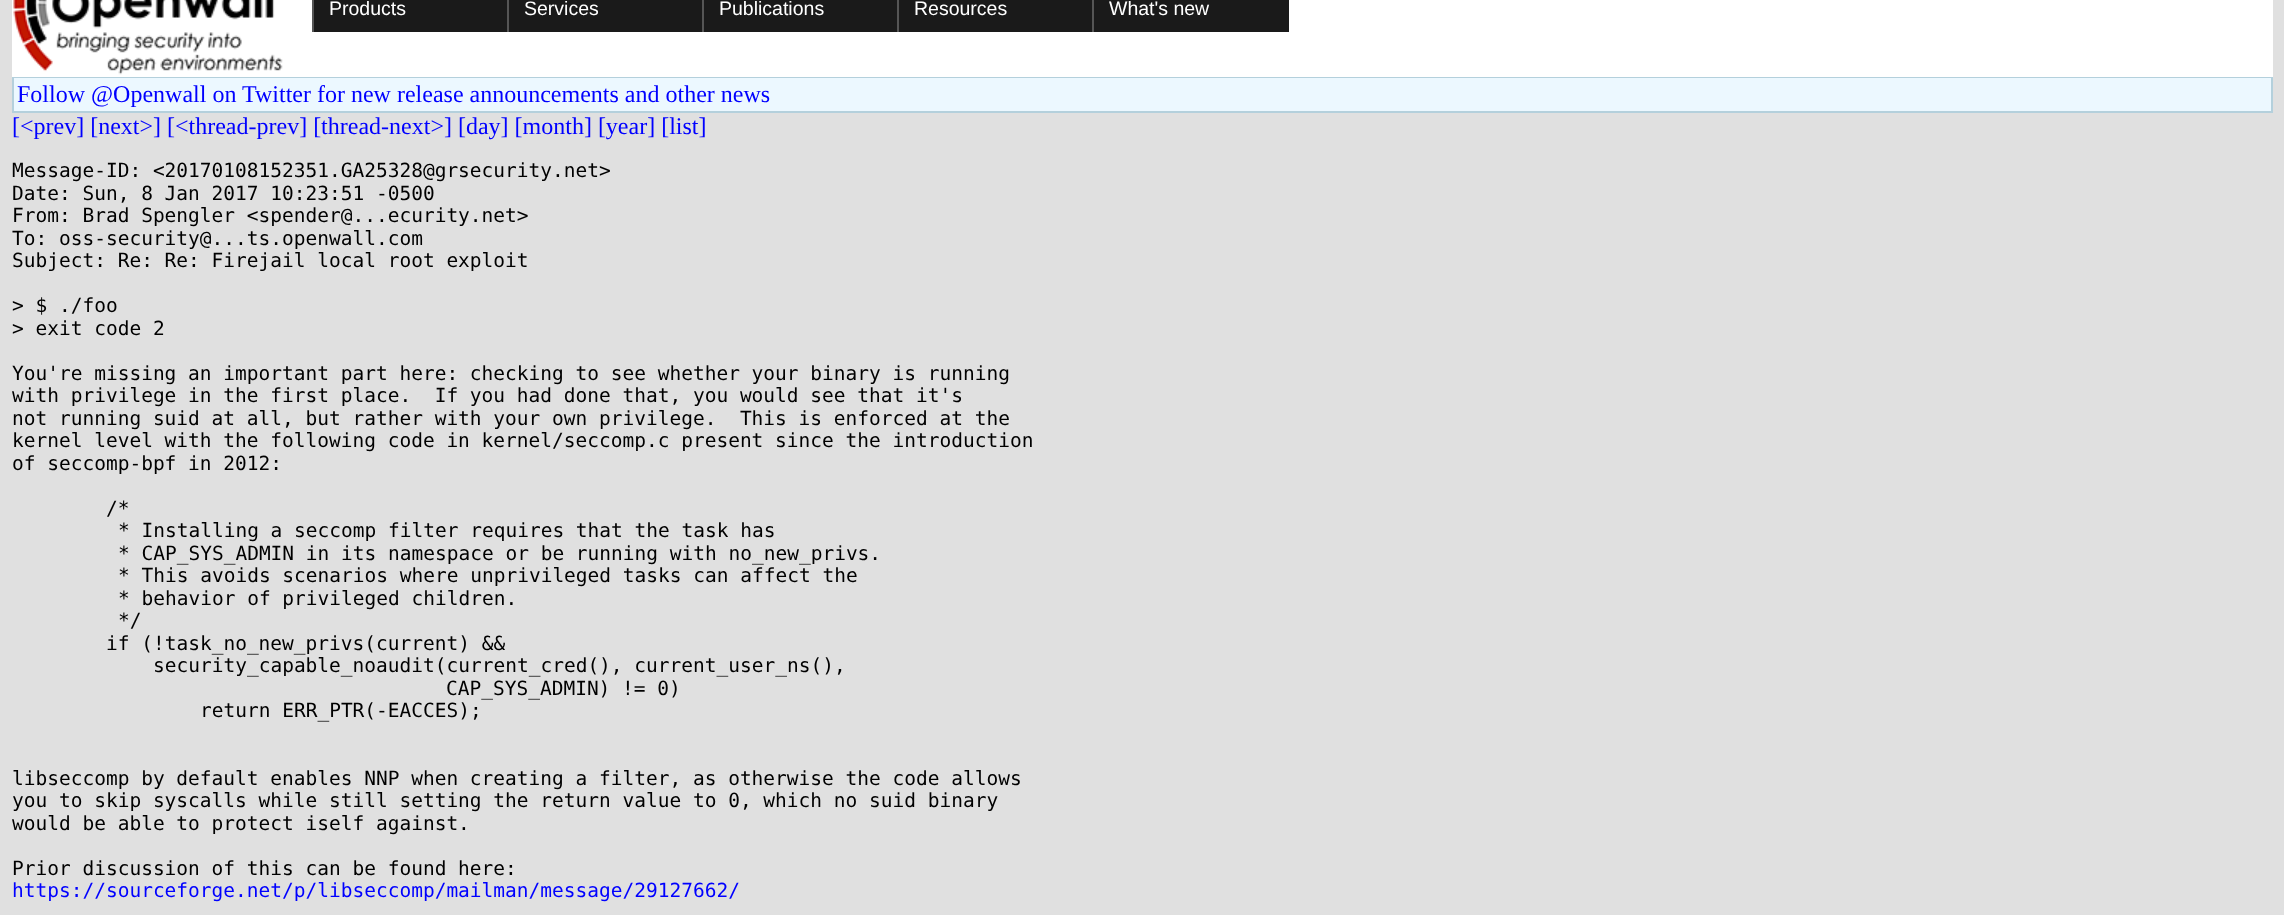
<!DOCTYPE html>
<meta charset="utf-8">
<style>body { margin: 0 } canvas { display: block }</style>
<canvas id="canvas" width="2284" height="915"></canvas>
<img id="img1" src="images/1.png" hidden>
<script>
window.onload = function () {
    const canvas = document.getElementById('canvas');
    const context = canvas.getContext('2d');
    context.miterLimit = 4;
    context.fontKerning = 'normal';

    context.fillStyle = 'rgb(224, 224, 224)';
    context.fillRect(0, 0, 2284, 915);
    context.fillStyle = 'rgb(255, 255, 255)';
    context.fillRect(12, 0, 2261, 77);
    context.drawImage(document.getElementById('img1'), 13, 0, 270, 75);
    context.fillStyle = 'rgb(26, 26, 26)';
    context.fillRect(314, 0, 193, 32);
    context.fillStyle = 'rgb(85, 85, 85)';
    context.fillRect(312, 0, 2, 32);
    context.fillStyle = 'rgb(26, 26, 26)';
    context.fillRect(509, 0, 193, 32);
    context.fillStyle = 'rgb(85, 85, 85)';
    context.fillRect(507, 0, 2, 32);
    context.fillStyle = 'rgb(26, 26, 26)';
    context.fillRect(704, 0, 193, 32);
    context.fillStyle = 'rgb(85, 85, 85)';
    context.fillRect(702, 0, 2, 32);
    context.fillStyle = 'rgb(26, 26, 26)';
    context.fillRect(899, 0, 193, 32);
    context.fillStyle = 'rgb(85, 85, 85)';
    context.fillRect(897, 0, 2, 32);
    context.fillStyle = 'rgb(26, 26, 26)';
    context.fillRect(1094, 0, 195, 32);
    context.fillStyle = 'rgb(85, 85, 85)';
    context.fillRect(1092, 0, 2, 32);
    context.fillStyle = 'rgb(180, 208, 220)';
    context.fillRect(12, 77, 2261, 36);
    context.fillStyle = 'rgb(236, 248, 255)';
    context.fillRect(14, 78, 2257, 33);
    context.font = '19.5px Liberation Sans';
    context.fillStyle = 'rgb(255, 255, 255)';
    context.fillText('Products', 329, 15);
    context.fillText('Services', 524, 15);
    context.fillText('Publications', 719, 15);
    context.fillText('Resources', 914, 15);
    context.fillText('What\'s new', 1109, 15);
    context.font = '24px Liberation Serif';
    context.fillStyle = 'rgb(0, 0, 255)';
    context.fillText('Follow @Openwall on Twitter for new release announcements and other news', 17, 102);
    context.fillText('[<prev] [next>] [<thread-prev] [thread-next>] [day] [month] [year] [list]', 12, 134);
    context.font = '19.5px DejaVu Sans Mono';
    context.fillStyle = 'rgb(0, 0, 0)';
    context.fillText('Message-ID: <20170108152351.GA25328@grsecurity.net>', 12, 177);
    context.fillText('Date: Sun, 8 Jan 2017 10:23:51 -0500', 12, 200);
    context.fillText('From: Brad Spengler <spender@...ecurity.net>', 12, 222);
    context.fillText('To: oss-security@...ts.openwall.com', 12, 245);
    context.fillText('Subject: Re: Re: Firejail local root exploit', 12, 267);
    context.fillText('> $ ./foo', 12, 312);
    context.fillText('> exit code 2', 12, 335);
    context.fillText('You\'re missing an important part here: checking to see whether your binary is running', 12, 380);
    context.fillText('with privilege in the first place.  If you had done that, you would see that it\'s', 12, 402);
    context.fillText('not running suid at all, but rather with your own privilege.  This is enforced at the', 12, 425);
    context.fillText('kernel level with the following code in kernel/seccomp.c present since the introduction', 12, 447);
    context.fillText('of seccomp-bpf in 2012:', 12, 470);
    context.fillText('/*', 106, 515);
    context.fillText('* Installing a seccomp filter requires that the task has', 118, 537);
    context.fillText('* CAP_SYS_ADMIN in its namespace or be running with no_new_privs.', 118, 560);
    context.fillText('* This avoids scenarios where unprivileged tasks can affect the', 118, 582);
    context.fillText('* behavior of privileged children.', 118, 605);
    context.fillText('*/', 118, 627);
    context.fillText('if (!task_no_new_privs(current) &&', 106, 650);
    context.fillText('security_capable_noaudit(current_cred(), current_user_ns(),', 153, 672);
    context.fillText('CAP_SYS_ADMIN) != 0)', 446, 695);
    context.fillText('return ERR_PTR(-EACCES);', 200, 717);
    context.fillText('libseccomp by default enables NNP when creating a filter, as otherwise the code allows', 12, 785);
    context.fillText('you to skip syscalls while still setting the return value to 0, which no suid binary', 12, 807);
    context.fillText('would be able to protect iself against.', 12, 830);
    context.fillText('Prior discussion of this can be found here:', 12, 875);
    context.fillStyle = 'rgb(0, 0, 255)';
    context.fillText('https://sourceforge.net/p/libseccomp/mailman/message/29127662/', 12, 897);
};
</script>
